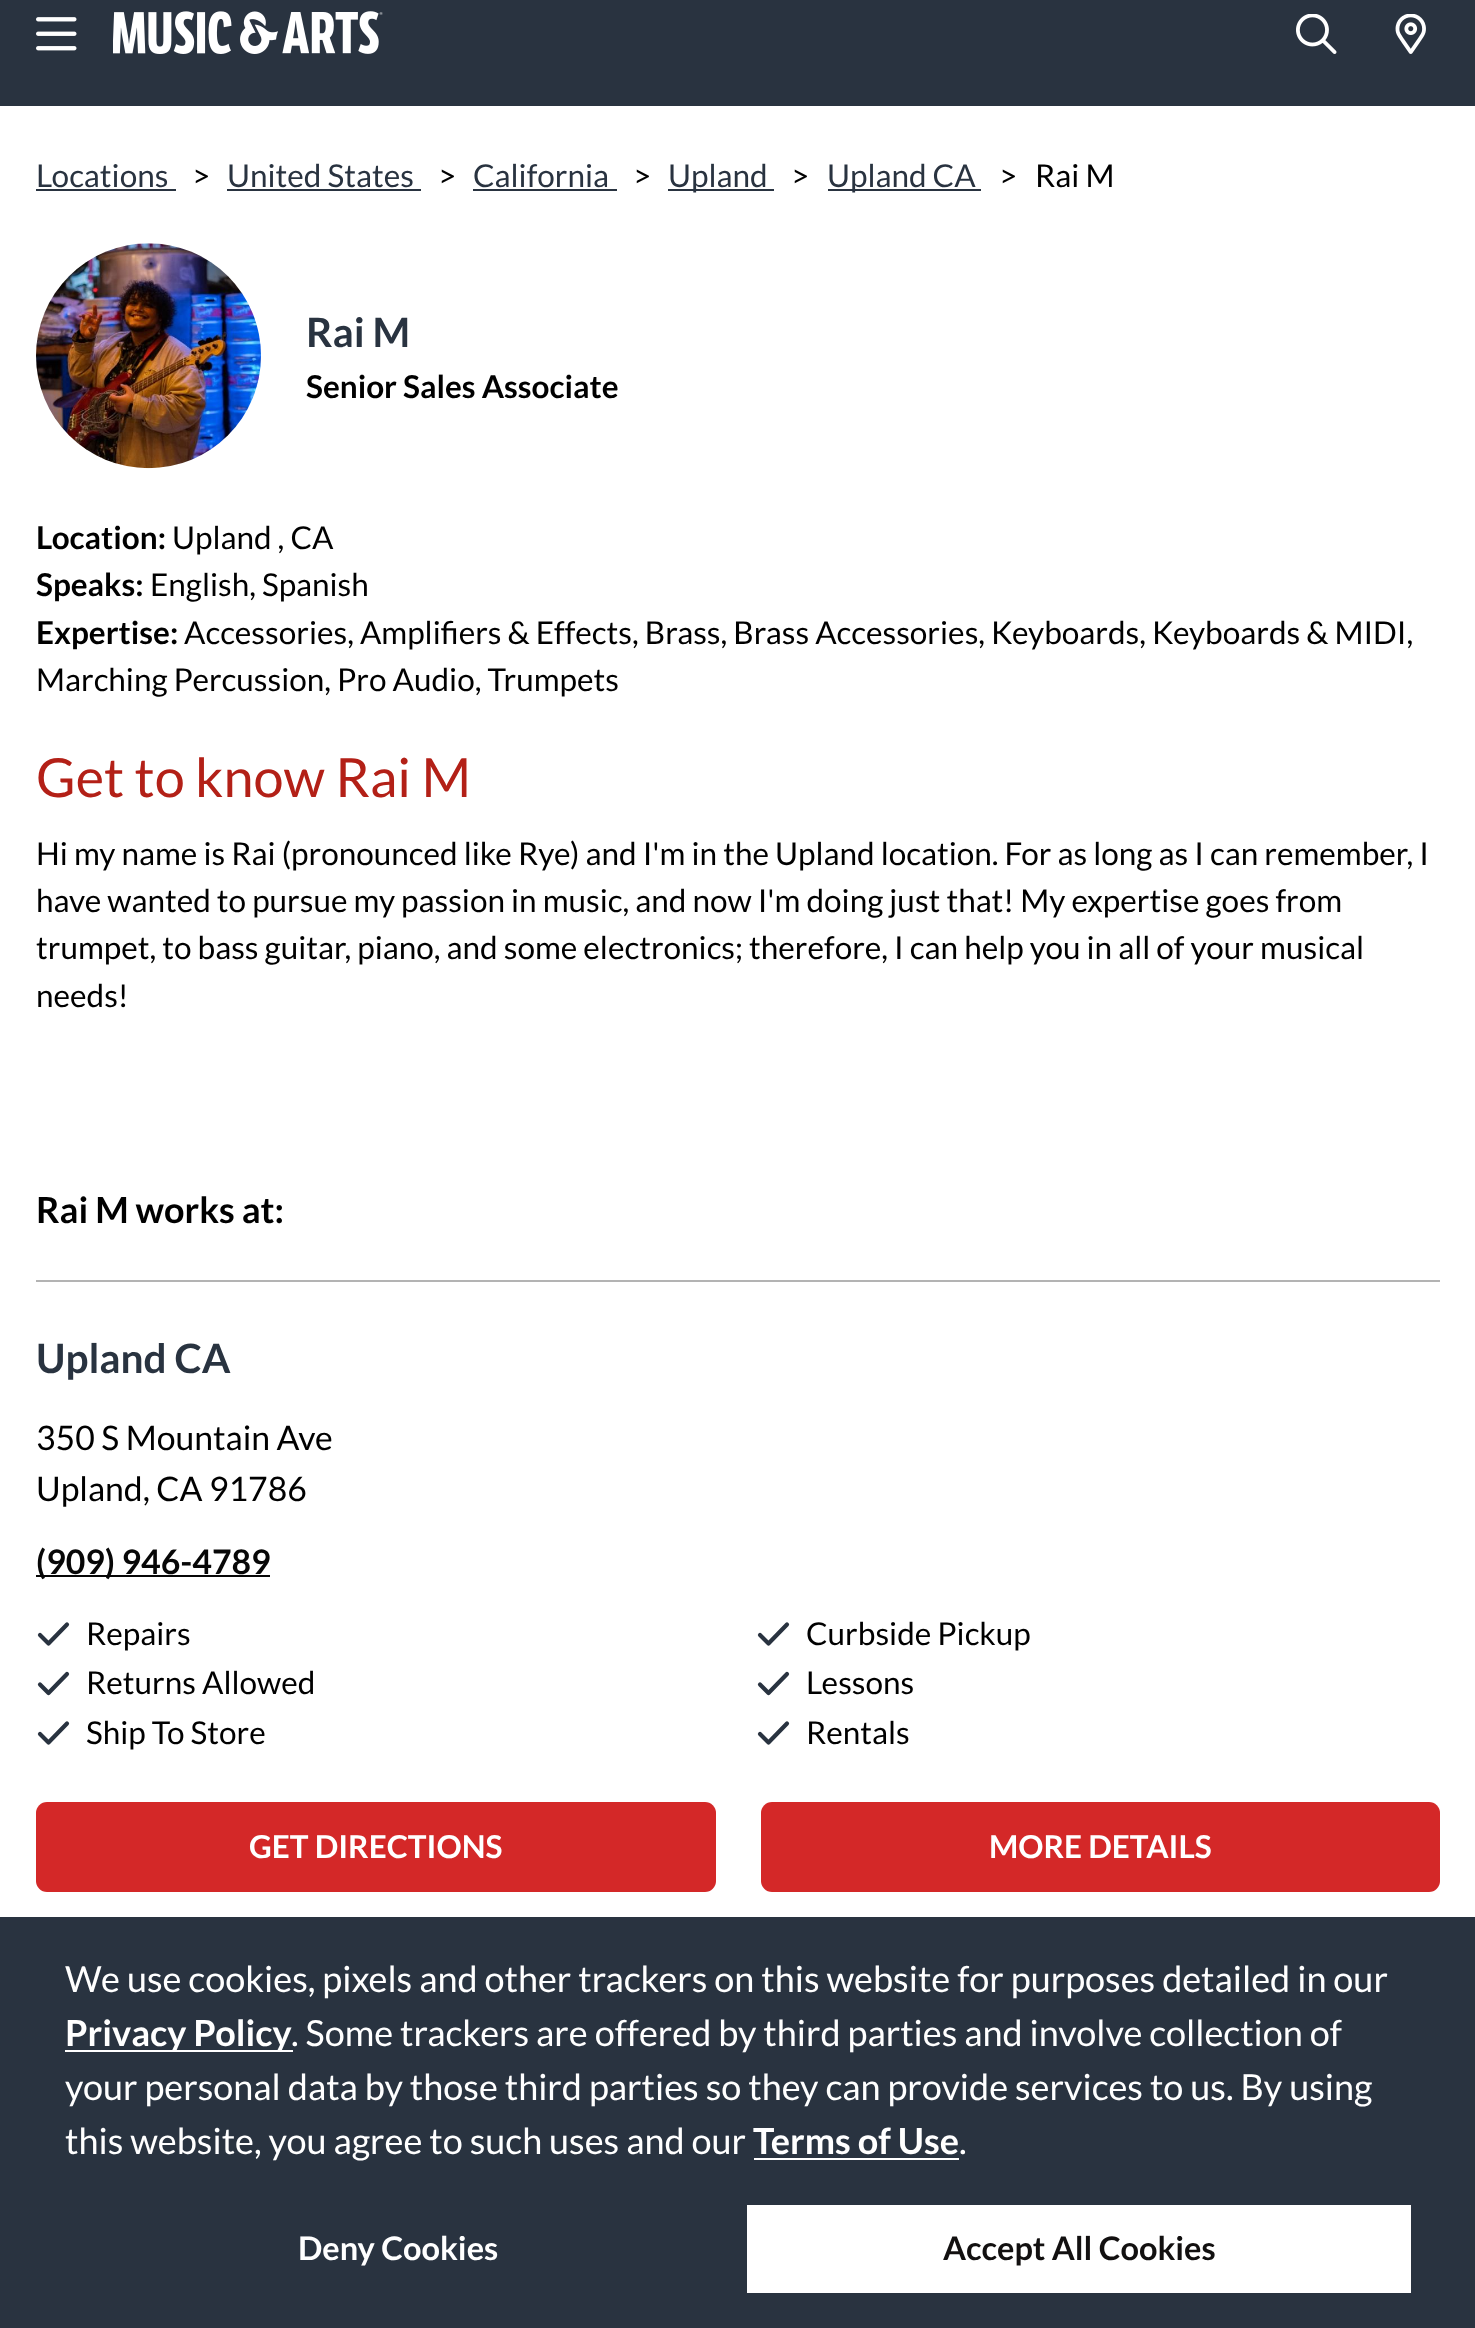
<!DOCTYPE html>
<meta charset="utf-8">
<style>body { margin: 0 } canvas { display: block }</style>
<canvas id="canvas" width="1475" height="2328"></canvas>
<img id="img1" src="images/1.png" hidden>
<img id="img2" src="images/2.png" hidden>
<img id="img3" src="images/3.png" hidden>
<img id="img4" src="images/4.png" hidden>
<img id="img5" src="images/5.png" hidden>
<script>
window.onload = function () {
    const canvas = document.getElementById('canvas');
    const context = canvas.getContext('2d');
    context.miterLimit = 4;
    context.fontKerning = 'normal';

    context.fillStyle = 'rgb(255, 255, 255)';
    context.fillRect(0, 0, 1475, 2328);
    context.fillStyle = 'rgb(41, 51, 64)';
    context.fillRect(0, 0, 1475, 106);
    context.drawImage(document.getElementById('img1'), 36, 17, 41, 34);
    context.drawImage(document.getElementById('img2'), 113, 11, 270, 43);
    context.drawImage(document.getElementById('img3'), 1296, 14, 41, 40);
    context.drawImage(document.getElementById('img4'), 1395, 14, 31, 40);
    context.fillRect(36, 189, 140, 2);
    context.fillRect(227, 189, 194, 2);
    context.fillRect(473, 189, 144, 2);
    context.fillRect(668, 189, 106, 2);
    context.fillRect(828, 189, 153, 2);
    context.drawImage(document.getElementById('img5'), 36, 243, 225, 226);
    context.fillStyle = 'rgb(179, 179, 179)';
    context.fillRect(36, 1280, 1404, 2);
    context.fillStyle = 'rgb(7, 7, 7)';
    context.fillRect(36, 1575, 234, 2);
    context.beginPath();
    context.moveTo(40, 1635);
    context.lineTo(48.5, 1643.5);
    context.moveTo(48.5, 1643.5);
    context.lineTo(67, 1624.5);
    context.strokeStyle = 'rgb(41, 51, 64)';
    context.lineWidth = 4.2;
    context.lineCap = 'round';
    context.stroke();
    context.beginPath();
    context.moveTo(760, 1635);
    context.lineTo(768.5, 1643.5);
    context.moveTo(768.5, 1643.5);
    context.lineTo(787, 1624.5);
    context.stroke();
    context.beginPath();
    context.moveTo(40, 1684.5);
    context.lineTo(48.5, 1693);
    context.moveTo(48.5, 1693);
    context.lineTo(67, 1674);
    context.stroke();
    context.beginPath();
    context.moveTo(760, 1684.5);
    context.lineTo(768.5, 1693);
    context.moveTo(768.5, 1693);
    context.lineTo(787, 1674);
    context.stroke();
    context.beginPath();
    context.moveTo(40, 1734);
    context.lineTo(48.5, 1742.5);
    context.moveTo(48.5, 1742.5);
    context.lineTo(67, 1723.5);
    context.stroke();
    context.beginPath();
    context.moveTo(760, 1734);
    context.lineTo(768.5, 1742.5);
    context.moveTo(768.5, 1742.5);
    context.lineTo(787, 1723.5);
    context.stroke();
    context.fillStyle = 'rgb(212, 40, 40)';
    context.beginPath();
    context.roundRect(36, 1802, 680, 90, 11);
    context.fill();
    context.beginPath();
    context.roundRect(761, 1802, 679, 90, 11);
    context.fill();
    context.fillStyle = 'rgb(41, 51, 64)';
    context.fillRect(0, 1917, 1475, 411);
    context.fillStyle = 'rgb(255, 255, 255)';
    context.fillRect(65, 2050, 228, 2);
    context.fillRect(754, 2158, 205, 2);
    context.fillRect(747, 2205, 664, 88);
    context.font = '31.5px Lato';
    context.fillStyle = 'rgb(41, 51, 64)';
    context.fillText('Locations', 36, 187);
    context.fillStyle = 'rgb(0, 0, 0)';
    context.fillText('>', 192, 187);
    context.fillStyle = 'rgb(41, 51, 64)';
    context.fillText('United States', 227, 187);
    context.fillStyle = 'rgb(0, 0, 0)';
    context.fillText('>', 438, 187);
    context.fillStyle = 'rgb(41, 51, 64)';
    context.fillText('California', 473, 187);
    context.fillStyle = 'rgb(0, 0, 0)';
    context.fillText('>', 633, 187);
    context.fillStyle = 'rgb(41, 51, 64)';
    context.fillText('Upland', 668, 187);
    context.fillStyle = 'rgb(0, 0, 0)';
    context.fillText('>', 791, 187);
    context.fillStyle = 'rgb(41, 51, 64)';
    context.fillText('Upland CA', 827, 187);
    context.fillStyle = 'rgb(0, 0, 0)';
    context.fillText('>', 999, 187);
    context.fillText('Rai M', 1035, 187);
    context.font = 'bold 40.5px Lato';
    context.fillStyle = 'rgb(41, 51, 64)';
    context.fillText('Rai M', 306, 347);
    context.font = 'bold 31.5px Lato';
    context.fillStyle = 'rgb(0, 0, 0)';
    context.fillText('Senior Sales Associate', 306, 398);
    context.fillText('Location:', 36, 549);
    context.font = '31.5px Lato';
    context.fillText('Upland , CA', 172, 549);
    context.font = 'bold 31.5px Lato';
    context.fillText('Speaks:', 36, 596);
    context.font = '31.5px Lato';
    context.fillText('English, Spanish', 150, 596);
    context.font = 'bold 31.5px Lato';
    context.fillText('Expertise:', 36, 644);
    context.font = '31.5px Lato';
    context.fillText('Accessories, Amplifiers & Effects, Brass, Brass Accessories, Keyboards, Keyboards & MIDI,', 184, 644);
    context.fillText('Marching Percussion, Pro Audio, Trumpets', 36, 691);
    context.font = '54px Lato';
    context.fillStyle = 'rgb(179, 32, 23)';
    context.fillText('Get to know Rai M', 36, 797);
    context.font = '31.5px Lato';
    context.fillStyle = 'rgb(0, 0, 0)';
    context.fillText('Hi my name is Rai (pronounced like Rye) and I\'m in the Upland location. For as long as I can remember, I', 36, 865);
    context.fillText('have wanted to pursue my passion in music, and now I\'m doing just that! My expertise goes from', 36, 912);
    context.fillText('trumpet, to bass guitar, piano, and some electronics; therefore, I can help you in all of your musical', 36, 959);
    context.fillText('needs!', 36, 1007);
    context.font = 'bold 36px Lato';
    context.fillText('Rai M works at:', 36, 1223);
    context.font = 'bold 40.5px Lato';
    context.fillStyle = 'rgb(41, 51, 64)';
    context.fillText('Upland CA', 36, 1373);
    context.font = '33.75px Lato';
    context.fillStyle = 'rgb(0, 0, 0)';
    context.fillText('350 S Mountain Ave', 36, 1450);
    context.fillText('Upland, CA 91786', 36, 1501);
    context.font = 'bold 33.75px Lato';
    context.fillStyle = 'rgb(7, 7, 7)';
    context.fillText('(909) 946-4789', 36, 1574);
    context.font = '31.5px Lato';
    context.fillStyle = 'rgb(0, 0, 0)';
    context.fillText('Repairs', 86, 1645);
    context.fillText('Curbside Pickup', 806, 1645);
    context.fillText('Returns Allowed', 86, 1694);
    context.fillText('Lessons', 806, 1694);
    context.fillText('Ship To Store', 86, 1744);
    context.fillText('Rentals', 806, 1744);
    context.font = 'bold 31.5px Lato';
    context.fillStyle = 'rgb(255, 255, 255)';
    context.fillText('GET DIRECTIONS', 249, 1858);
    context.fillText('MORE DETAILS', 989, 1858);
    context.font = '36px Lato';
    context.fillText('We use cookies, pixels and other trackers on this website for purposes detailed in our', 65, 1992);
    context.font = 'bold 36px Lato';
    context.fillText('Privacy Policy', 65, 2046);
    context.font = '36px Lato';
    context.fillText('. Some trackers are offered by third parties and involve collection of', 291, 2046);
    context.fillText('your personal data by those third parties so they can provide services to us. By using', 65, 2100);
    context.fillText('this website, you agree to such uses and our', 65, 2154);
    context.font = 'bold 36px Lato';
    context.fillText('Terms of Use', 753, 2154);
    context.font = '36px Lato';
    context.fillText('.', 959, 2154);
    context.font = 'bold 32.5px Lato';
    context.fillText('Deny Cookies', 298, 2260);
    context.fillStyle = 'rgb(18, 16, 16)';
    context.fillText('Accept All Cookies', 943, 2260);
};
</script>
